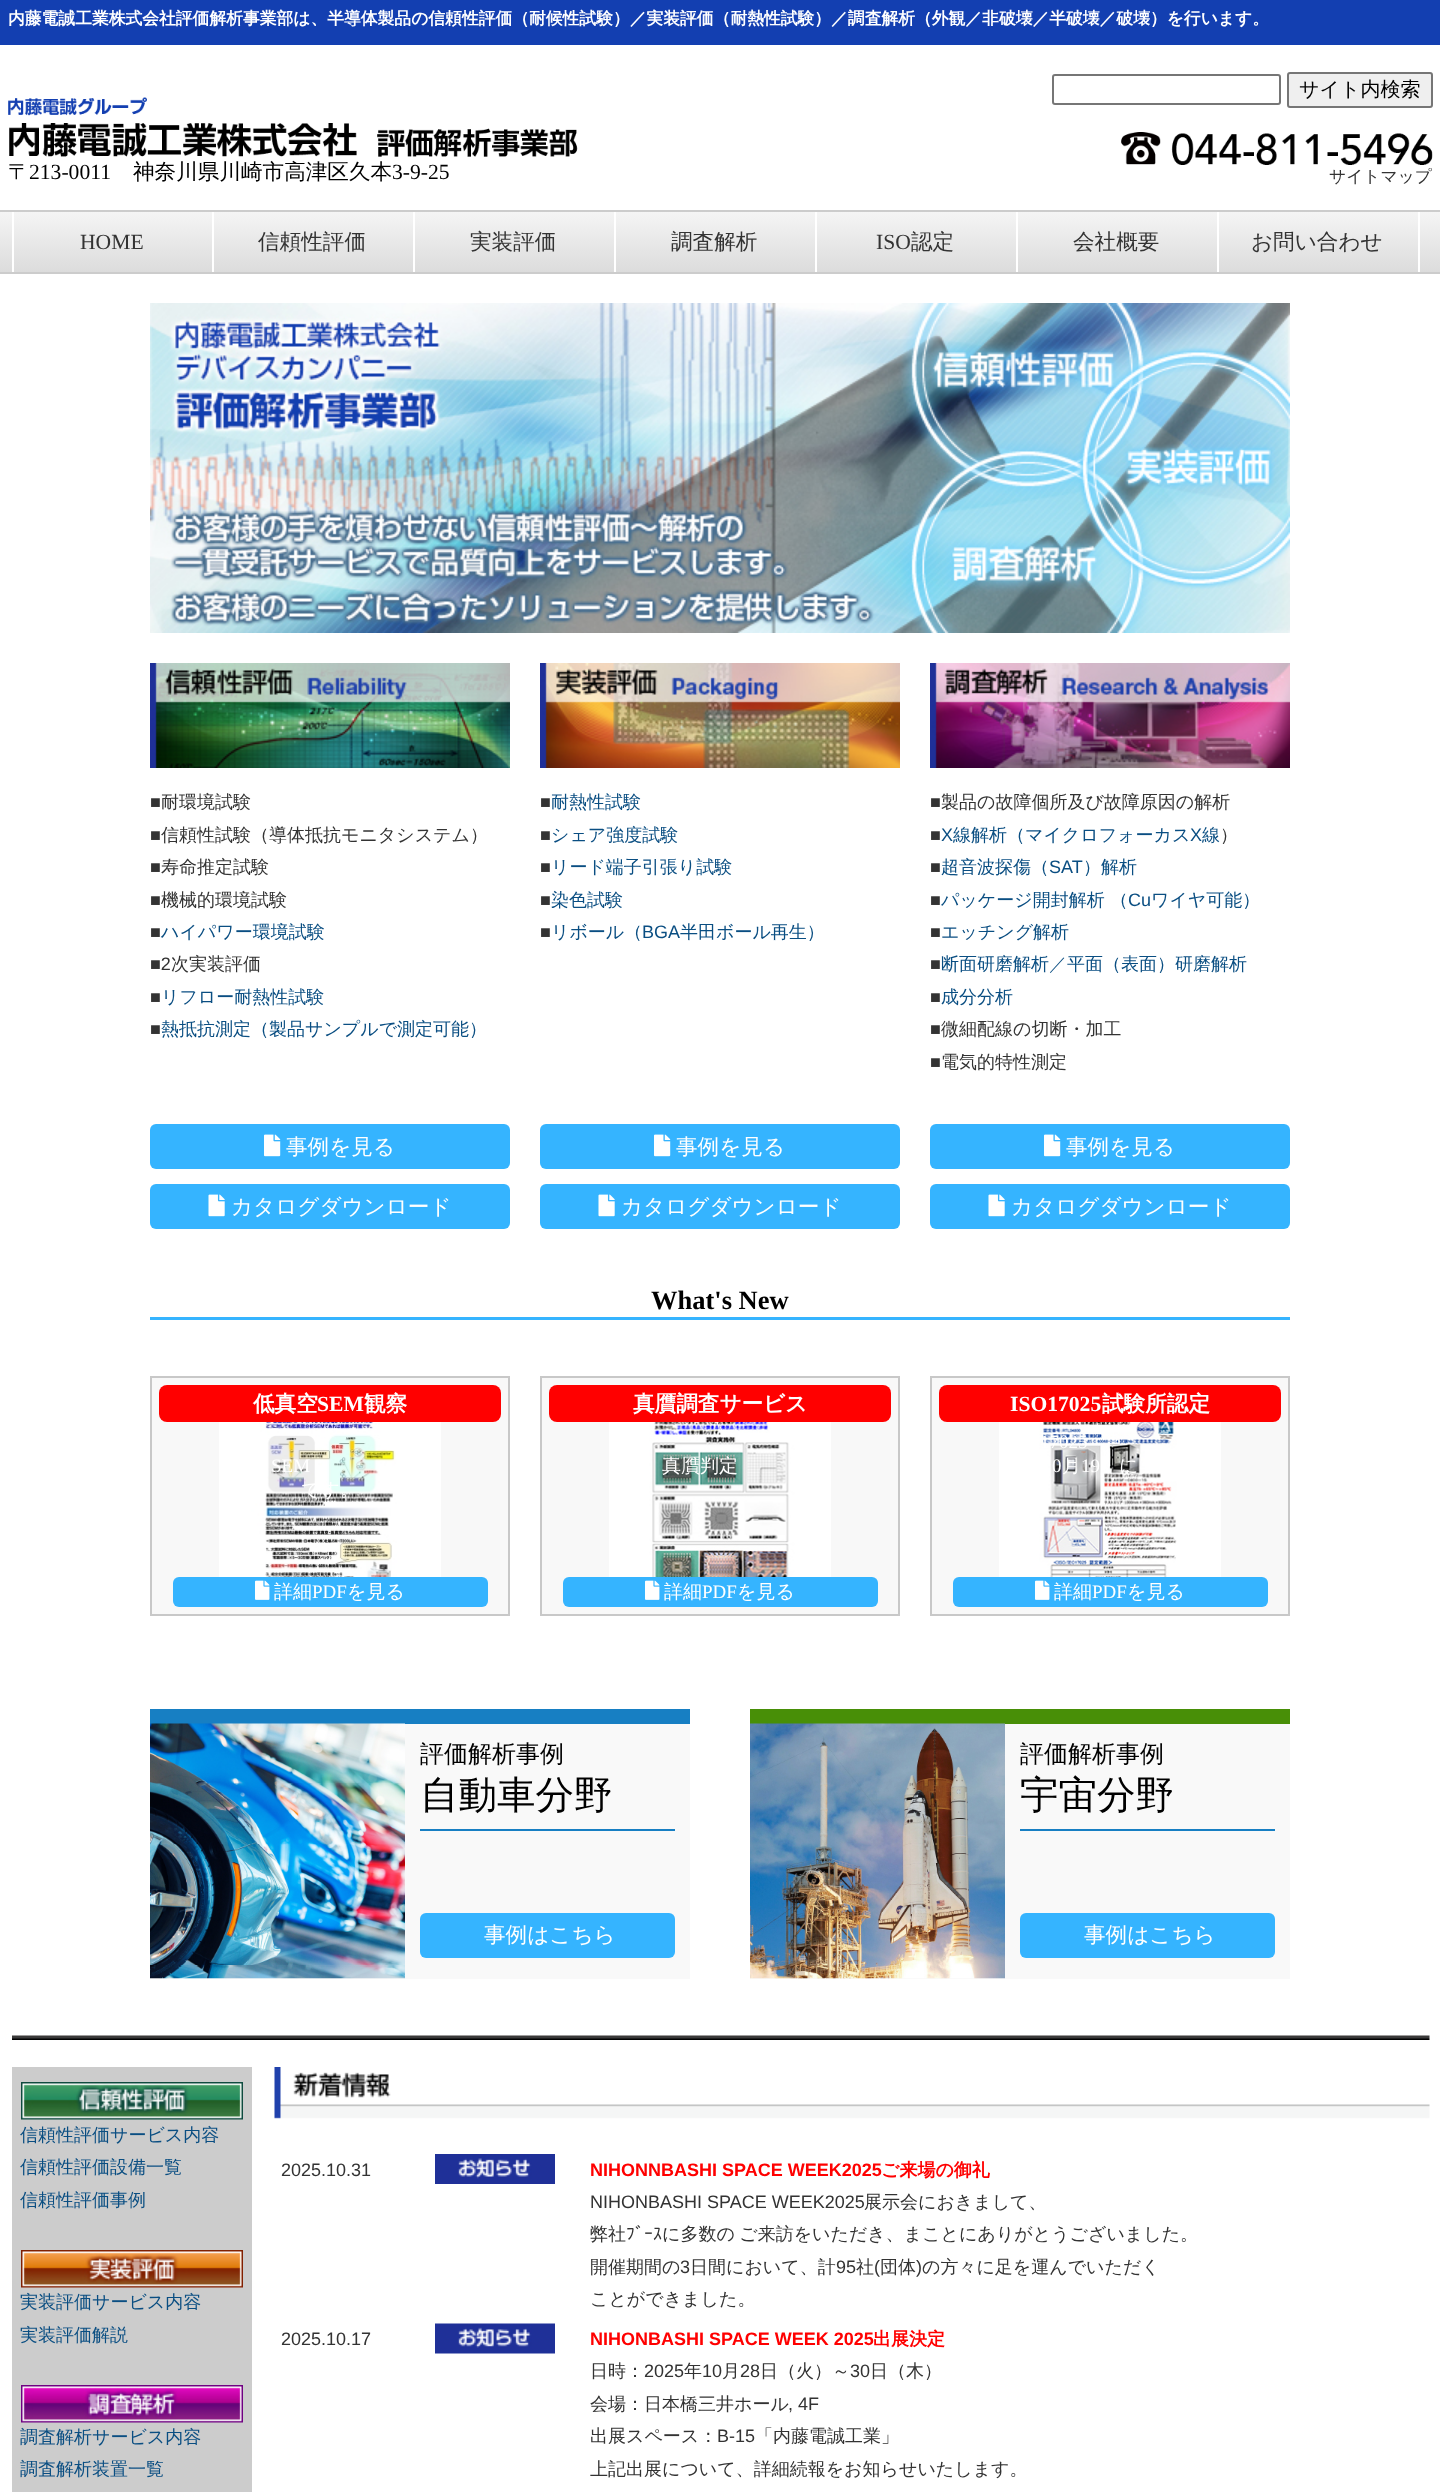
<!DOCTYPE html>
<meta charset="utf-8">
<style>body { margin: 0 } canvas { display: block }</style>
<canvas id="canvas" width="1440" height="2492"></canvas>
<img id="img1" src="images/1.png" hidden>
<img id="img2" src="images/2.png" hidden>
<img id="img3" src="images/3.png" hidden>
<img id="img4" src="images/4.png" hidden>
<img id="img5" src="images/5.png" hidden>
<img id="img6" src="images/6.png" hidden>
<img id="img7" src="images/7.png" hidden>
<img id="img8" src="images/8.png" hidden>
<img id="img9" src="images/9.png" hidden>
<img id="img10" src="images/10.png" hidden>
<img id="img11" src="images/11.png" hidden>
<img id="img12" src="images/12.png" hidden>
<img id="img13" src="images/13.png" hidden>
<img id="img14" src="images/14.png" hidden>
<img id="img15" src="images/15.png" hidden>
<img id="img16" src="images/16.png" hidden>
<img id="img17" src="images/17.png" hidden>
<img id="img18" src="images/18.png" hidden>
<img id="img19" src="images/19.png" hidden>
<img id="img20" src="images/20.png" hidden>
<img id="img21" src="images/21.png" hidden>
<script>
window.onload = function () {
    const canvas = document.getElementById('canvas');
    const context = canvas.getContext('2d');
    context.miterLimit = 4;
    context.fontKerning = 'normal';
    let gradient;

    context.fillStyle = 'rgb(255, 255, 255)';
    context.fillRect(0, 0, 1440, 2492);
    context.fillStyle = 'rgb(19, 63, 177)';
    context.fillRect(0, 0, 1440, 45);
    context.drawImage(document.getElementById('img1'), 8, 97, 570, 60);
    context.beginPath();
    context.roundRect(1053, 75, 227, 29, 2);
    context.strokeStyle = 'rgb(118, 118, 118)';
    context.lineWidth = 2;
    context.stroke();
    context.fillStyle = 'rgb(239, 239, 239)';
    context.beginPath();
    context.roundRect(1288, 73, 144, 34, 2);
    context.fill();
    context.stroke();
    context.drawImage(document.getElementById('img2'), 1121, 132, 312, 33);
    gradient = context.createLinearGradient(720, 211, 720, 272);
    gradient.addColorStop(0, 'rgb(245, 245, 245)');
    gradient.addColorStop(1, 'rgb(220, 220, 220)');
    context.fillStyle = gradient;
    context.fillRect(0, 212, 1440, 60);
    context.fillStyle = 'rgb(204, 204, 204)';
    context.fillRect(0, 210, 1440, 2);
    context.fillRect(0, 272, 1440, 2);
    context.fillStyle = 'rgb(255, 255, 255)';
    context.fillRect(212, 212, 2, 60);
    context.fillRect(12, 212, 2, 60);
    context.fillRect(413, 212, 2, 60);
    context.fillRect(614, 212, 2, 60);
    context.fillRect(815, 212, 2, 60);
    context.fillRect(1016, 212, 2, 60);
    context.fillRect(1217, 212, 2, 60);
    context.fillRect(1418, 212, 2, 60);
    context.drawImage(document.getElementById('img3'), 150, 303, 1140, 330);
    context.drawImage(document.getElementById('img4'), 150, 663, 360, 105);
    context.drawImage(document.getElementById('img5'), 540, 663, 360, 105);
    context.drawImage(document.getElementById('img6'), 930, 663, 360, 105);
    context.fillStyle = 'rgb(53, 180, 255)';
    context.beginPath();
    context.roundRect(150, 1124, 360, 45, 6);
    context.fill();
    context.drawImage(document.getElementById('img7'), 264, 1134, 17, 23);
    context.beginPath();
    context.roundRect(150, 1184, 360, 45, 6);
    context.fill();
    context.drawImage(document.getElementById('img8'), 208, 1194, 17, 23);
    context.beginPath();
    context.roundRect(540, 1124, 360, 45, 6);
    context.fill();
    context.drawImage(document.getElementById('img7'), 654, 1134, 17, 23);
    context.beginPath();
    context.roundRect(540, 1184, 360, 45, 6);
    context.fill();
    context.drawImage(document.getElementById('img8'), 598, 1194, 17, 23);
    context.beginPath();
    context.roundRect(930, 1124, 360, 45, 6);
    context.fill();
    context.drawImage(document.getElementById('img7'), 1044, 1134, 17, 23);
    context.beginPath();
    context.roundRect(930, 1184, 360, 45, 6);
    context.fill();
    context.drawImage(document.getElementById('img8'), 988, 1194, 17, 23);
    context.fillRect(150, 1317, 1140, 3);
    context.fillStyle = 'rgb(248, 248, 248)';
    context.beginPath();
    context.rect(151, 1377, 358, 238);
    context.fill();
    context.strokeStyle = 'rgb(200, 200, 200)';
    context.stroke();
    context.fillStyle = 'rgb(255, 0, 0)';
    context.beginPath();
    context.roundRect(159, 1385, 342, 37, 8);
    context.fill();
    context.fillStyle = 'rgb(53, 180, 255)';
    context.beginPath();
    context.roundRect(173, 1577, 315, 30, 6);
    context.fill();
    context.drawImage(document.getElementById('img9'), 255, 1580, 15, 20);
    context.drawImage(document.getElementById('img10'), 219, 1422, 222, 155);
    context.fillStyle = 'rgb(248, 248, 248)';
    context.beginPath();
    context.rect(541, 1377, 358, 238);
    context.fill();
    context.stroke();
    context.fillStyle = 'rgb(255, 0, 0)';
    context.beginPath();
    context.roundRect(549, 1385, 342, 37, 8);
    context.fill();
    context.fillStyle = 'rgb(53, 180, 255)';
    context.beginPath();
    context.roundRect(563, 1577, 315, 30, 6);
    context.fill();
    context.drawImage(document.getElementById('img9'), 645, 1580, 15, 20);
    context.drawImage(document.getElementById('img11'), 609, 1422, 222, 155);
    context.fillStyle = 'rgb(248, 248, 248)';
    context.beginPath();
    context.rect(931, 1377, 358, 238);
    context.fill();
    context.stroke();
    context.fillStyle = 'rgb(255, 0, 0)';
    context.beginPath();
    context.roundRect(939, 1385, 342, 37, 8);
    context.fill();
    context.fillStyle = 'rgb(53, 180, 255)';
    context.beginPath();
    context.roundRect(953, 1577, 315, 30, 6);
    context.fill();
    context.drawImage(document.getElementById('img9'), 1035, 1580, 15, 20);
    context.drawImage(document.getElementById('img12'), 999, 1422, 222, 155);
    context.fillStyle = 'rgb(249, 249, 249)';
    context.fillRect(150, 1724, 540, 255);
    context.fillStyle = 'rgb(23, 127, 195)';
    context.fillRect(150, 1709, 540, 15);
    context.drawImage(document.getElementById('img13'), 150, 1723, 255, 256);
    context.fillRect(420, 1829, 255, 2);
    context.fillStyle = 'rgb(53, 180, 255)';
    context.beginPath();
    context.roundRect(420, 1913, 255, 45, 6);
    context.fill();
    context.fillStyle = 'rgb(249, 249, 249)';
    context.fillRect(750, 1724, 540, 255);
    context.fillStyle = 'rgb(72, 143, 7)';
    context.fillRect(750, 1709, 540, 15);
    context.drawImage(document.getElementById('img14'), 750, 1723, 255, 256);
    context.fillStyle = 'rgb(23, 127, 195)';
    context.fillRect(1020, 1829, 255, 2);
    context.fillStyle = 'rgb(53, 180, 255)';
    context.beginPath();
    context.roundRect(1020, 1913, 255, 45, 6);
    context.fill();
    context.drawImage(document.getElementById('img15'), 12, 2035, 1418, 5);
    context.fillStyle = 'rgb(204, 204, 204)';
    context.fillRect(12, 2067, 240, 425);
    context.drawImage(document.getElementById('img16'), 21, 2082, 222, 38);
    context.drawImage(document.getElementById('img17'), 21, 2250, 222, 38);
    context.drawImage(document.getElementById('img18'), 21, 2385, 222, 38);
    context.drawImage(document.getElementById('img19'), 274, 2067, 1156, 52);
    context.drawImage(document.getElementById('img20'), 435, 2154, 120, 30);
    context.drawImage(document.getElementById('img21'), 435, 2323, 120, 31);
    context.font = 'bold 16.8px WenQuanYi Zen Hei';
    context.fillStyle = 'rgb(255, 255, 255)';
    context.fillText('内藤電誠工業株式会社評価解析事業部は、半導体製品の信頼性評価（耐候性試験）／実装評価（耐熱性試験）／調査解析（外観／非破壊／半破壊／破壊）を行います。', 8, 24);
    context.font = '500 21.6px WenQuanYi Zen Hei';
    context.fillStyle = 'rgb(0, 0, 0)';
    context.fillText('〒', 8, 179);
    context.font = '21.6px Liberation Serif';
    context.fillText('213-0011', 29, 179);
    context.font = '500 21.6px WenQuanYi Zen Hei';
    context.fillText('神奈川県川崎市高津区久本', 133, 179);
    context.font = '21.6px Liberation Serif';
    context.fillText('3-9-25', 392, 179);
    context.font = '500 20px WenQuanYi Zen Hei';
    context.fillText('サイト内検索', 1299, 96);
    context.font = '500 16.8px WenQuanYi Zen Hei';
    context.fillStyle = 'rgb(51, 51, 51)';
    context.fillText('サイトマップ', 1329, 182);
    context.font = '21.6px Liberation Serif';
    context.fillText('HOME', 80, 249);
    context.font = '500 21.6px WenQuanYi Zen Hei';
    context.fillText('信頼性評価', 258, 249);
    context.fillText('実装評価', 470, 249);
    context.fillText('調査解析', 671, 249);
    context.font = '21.6px Liberation Serif';
    context.fillText('ISO', 876, 249);
    context.font = '500 21.6px WenQuanYi Zen Hei';
    context.fillText('認定', 911, 249);
    context.fillText('会社概要', 1073, 249);
    context.fillText('お問い合わせ', 1251, 249);
    context.font = '18px Liberation Sans';
    context.fillText('■', 150, 808);
    context.font = '500 18px WenQuanYi Zen Hei';
    context.fillText('耐環境試験', 161, 808);
    context.font = '18px Liberation Sans';
    context.fillText('■', 150, 841);
    context.font = '500 18px WenQuanYi Zen Hei';
    context.fillText('信頼性試験（導体抵抗モニタシステム）', 161, 841);
    context.font = '18px Liberation Sans';
    context.fillText('■', 150, 873);
    context.font = '500 18px WenQuanYi Zen Hei';
    context.fillText('寿命推定試験', 161, 873);
    context.font = '18px Liberation Sans';
    context.fillText('■', 150, 906);
    context.font = '500 18px WenQuanYi Zen Hei';
    context.fillText('機械的環境試験', 161, 906);
    context.font = '18px Liberation Sans';
    context.fillText('■', 150, 938);
    context.font = '500 18px WenQuanYi Zen Hei';
    context.fillStyle = 'rgb(10, 78, 130)';
    context.fillText('ハイパワー環境試験', 161, 938);
    context.font = '18px Liberation Sans';
    context.fillStyle = 'rgb(51, 51, 51)';
    context.fillText('■2', 150, 970);
    context.font = '500 18px WenQuanYi Zen Hei';
    context.fillText('次実装評価', 171, 970);
    context.font = '18px Liberation Sans';
    context.fillText('■', 150, 1003);
    context.font = '500 18px WenQuanYi Zen Hei';
    context.fillStyle = 'rgb(10, 78, 130)';
    context.fillText('リフロー耐熱性試験', 161, 1003);
    context.font = '18px Liberation Sans';
    context.fillStyle = 'rgb(51, 51, 51)';
    context.fillText('■', 150, 1035);
    context.font = '500 18px WenQuanYi Zen Hei';
    context.fillStyle = 'rgb(10, 78, 130)';
    context.fillText('熱抵抗測定（製品サンプルで測定可能）', 161, 1035);
    context.font = '18px Liberation Sans';
    context.fillStyle = 'rgb(51, 51, 51)';
    context.fillText('■', 540, 808);
    context.font = '500 18px WenQuanYi Zen Hei';
    context.fillStyle = 'rgb(10, 78, 130)';
    context.fillText('耐熱性試験', 551, 808);
    context.font = '18px Liberation Sans';
    context.fillStyle = 'rgb(51, 51, 51)';
    context.fillText('■', 540, 841);
    context.font = '500 18px WenQuanYi Zen Hei';
    context.fillStyle = 'rgb(10, 78, 130)';
    context.fillText('シェア強度試験', 551, 841);
    context.font = '18px Liberation Sans';
    context.fillStyle = 'rgb(51, 51, 51)';
    context.fillText('■', 540, 873);
    context.font = '500 18px WenQuanYi Zen Hei';
    context.fillStyle = 'rgb(10, 78, 130)';
    context.fillText('リード端子引張り試験', 551, 873);
    context.font = '18px Liberation Sans';
    context.fillStyle = 'rgb(51, 51, 51)';
    context.fillText('■', 540, 906);
    context.font = '500 18px WenQuanYi Zen Hei';
    context.fillStyle = 'rgb(10, 78, 130)';
    context.fillText('染色試験', 551, 906);
    context.font = '18px Liberation Sans';
    context.fillStyle = 'rgb(51, 51, 51)';
    context.fillText('■', 540, 938);
    context.font = '500 18px WenQuanYi Zen Hei';
    context.fillStyle = 'rgb(10, 78, 130)';
    context.fillText('リボール（', 551, 938);
    context.font = '18px Liberation Sans';
    context.fillText('BGA', 642, 938);
    context.font = '500 18px WenQuanYi Zen Hei';
    context.fillText('半田ボール再生）', 680, 938);
    context.font = '18px Liberation Sans';
    context.fillStyle = 'rgb(51, 51, 51)';
    context.fillText('■', 930, 808);
    context.font = '500 18px WenQuanYi Zen Hei';
    context.fillText('製品の故障個所及び故障原因の解析', 941, 808);
    context.font = '18px Liberation Sans';
    context.fillText('■', 930, 841);
    context.fillStyle = 'rgb(10, 78, 130)';
    context.fillText('X', 941, 841);
    context.font = '500 18px WenQuanYi Zen Hei';
    context.fillText('線解析（マイクロフォーカス', 953, 841);
    context.font = '18px Liberation Sans';
    context.fillText('X', 1190, 841);
    context.font = '500 18px WenQuanYi Zen Hei';
    context.fillText('線', 1202, 841);
    context.fillStyle = 'rgb(51, 51, 51)';
    context.fillText('）', 1220, 841);
    context.font = '18px Liberation Sans';
    context.fillText('■', 930, 873);
    context.font = '500 18px WenQuanYi Zen Hei';
    context.fillStyle = 'rgb(10, 78, 130)';
    context.fillText('超音波探傷（', 941, 873);
    context.font = '18px Liberation Sans';
    context.fillText('SAT', 1049, 873);
    context.font = '500 18px WenQuanYi Zen Hei';
    context.fillText('）解析', 1083, 873);
    context.font = '18px Liberation Sans';
    context.fillStyle = 'rgb(51, 51, 51)';
    context.fillText('■', 930, 906);
    context.font = '500 18px WenQuanYi Zen Hei';
    context.fillStyle = 'rgb(10, 78, 130)';
    context.fillText('パッケージ開封解析', 941, 906);
    context.fillText('（', 1110, 906);
    context.font = '18px Liberation Sans';
    context.fillText('Cu', 1128, 906);
    context.font = '500 18px WenQuanYi Zen Hei';
    context.fillText('ワイヤ可能）', 1151, 906);
    context.font = '18px Liberation Sans';
    context.fillStyle = 'rgb(51, 51, 51)';
    context.fillText('■', 930, 938);
    context.font = '500 18px WenQuanYi Zen Hei';
    context.fillStyle = 'rgb(10, 78, 130)';
    context.fillText('エッチング解析', 941, 938);
    context.font = '18px Liberation Sans';
    context.fillStyle = 'rgb(51, 51, 51)';
    context.fillText('■', 930, 970);
    context.font = '500 18px WenQuanYi Zen Hei';
    context.fillStyle = 'rgb(10, 78, 130)';
    context.fillText('断面研磨解析／平面（表面）研磨解析', 941, 970);
    context.font = '18px Liberation Sans';
    context.fillStyle = 'rgb(51, 51, 51)';
    context.fillText('■', 930, 1003);
    context.font = '500 18px WenQuanYi Zen Hei';
    context.fillStyle = 'rgb(10, 78, 130)';
    context.fillText('成分分析', 941, 1003);
    context.font = '18px Liberation Sans';
    context.fillStyle = 'rgb(51, 51, 51)';
    context.fillText('■', 930, 1035);
    context.font = '500 18px WenQuanYi Zen Hei';
    context.fillText('微細配線の切断・加工', 941, 1035);
    context.font = '18px Liberation Sans';
    context.fillText('■', 930, 1068);
    context.font = '500 18px WenQuanYi Zen Hei';
    context.fillText('電気的特性測定', 941, 1068);
    context.font = '500 21.6px WenQuanYi Zen Hei';
    context.fillStyle = 'rgb(255, 255, 255)';
    context.fillText('事例を見る', 286, 1154);
    context.fillText('カタログダウンロード', 231, 1214);
    context.fillText('事例を見る', 676, 1154);
    context.fillText('カタログダウンロード', 621, 1214);
    context.fillText('事例を見る', 1066, 1154);
    context.fillText('カタログダウンロード', 1011, 1214);
    context.font = 'bold 26.5px Liberation Serif';
    context.fillStyle = 'rgb(0, 0, 0)';
    context.fillText('What\'s New', 651, 1309);
    context.font = 'bold 21.6px WenQuanYi Zen Hei';
    context.fillStyle = 'rgb(255, 255, 255)';
    context.fillText('低真空', 253, 1411);
    context.font = 'bold 21.6px Liberation Serif';
    context.fillText('SEM', 317, 1411);
    context.font = 'bold 21.6px WenQuanYi Zen Hei';
    context.fillText('観察', 364, 1411);
    context.font = '19px Liberation Serif';
    context.fillText('SEM', 271, 1472);
    context.font = '500 19px WenQuanYi Zen Hei';
    context.fillText('です。', 301, 1496);
    context.fillText('詳細', 274, 1598);
    context.font = '19px Liberation Serif';
    context.fillText('PDF', 312, 1598);
    context.font = '500 19px WenQuanYi Zen Hei';
    context.fillText('を見る', 347, 1598);
    context.font = 'bold 21.6px WenQuanYi Zen Hei';
    context.fillText('真贋調査サービス', 633, 1411);
    context.font = '500 19px WenQuanYi Zen Hei';
    context.fillText('真贋判定', 662, 1472);
    context.fillText('詳細', 664, 1598);
    context.font = '19px Liberation Serif';
    context.fillText('PDF', 702, 1598);
    context.font = '500 19px WenQuanYi Zen Hei';
    context.fillText('を見る', 737, 1598);
    context.font = 'bold 21.6px Liberation Serif';
    context.fillText('ISO17025', 1010, 1411);
    context.font = 'bold 21.6px WenQuanYi Zen Hei';
    context.fillText('試験所認定', 1102, 1411);
    context.font = '19px Liberation Serif';
    context.fillText('17025', 1040, 1448);
    context.fillText('0', 1052, 1472);
    context.font = '500 19px WenQuanYi Zen Hei';
    context.fillText('月', 1062, 1472);
    context.font = '19px Liberation Serif';
    context.fillText('19', 1081, 1472);
    context.font = '500 19px WenQuanYi Zen Hei';
    context.fillText('に', 1119, 1472);
    context.fillText('詳細', 1054, 1598);
    context.font = '19px Liberation Serif';
    context.fillText('PDF', 1092, 1598);
    context.font = '500 19px WenQuanYi Zen Hei';
    context.fillText('を見る', 1127, 1598);
    context.font = '500 24px WenQuanYi Zen Hei';
    context.fillStyle = 'rgb(0, 0, 0)';
    context.fillText('評価解析事例', 420, 1762);
    context.font = '500 38.5px WenQuanYi Zen Hei';
    context.fillText('自動車分野', 420, 1808);
    context.font = '500 21.6px WenQuanYi Zen Hei';
    context.fillStyle = 'rgb(255, 255, 255)';
    context.fillText('事例はこちら', 484, 1942);
    context.font = '500 24px WenQuanYi Zen Hei';
    context.fillStyle = 'rgb(0, 0, 0)';
    context.fillText('評価解析事例', 1020, 1762);
    context.font = '500 38.5px WenQuanYi Zen Hei';
    context.fillText('宇宙分野', 1020, 1808);
    context.font = '500 21.6px WenQuanYi Zen Hei';
    context.fillStyle = 'rgb(255, 255, 255)';
    context.fillText('事例はこちら', 1084, 1942);
    context.font = '500 18px WenQuanYi Zen Hei';
    context.fillStyle = 'rgb(10, 78, 130)';
    context.fillText('信頼性評価サービス内容', 20, 2141);
    context.fillText('信頼性評価設備一覧', 20, 2173);
    context.fillText('信頼性評価事例', 20, 2206);
    context.fillText('実装評価サービス内容', 20, 2308);
    context.fillText('実装評価解説', 20, 2341);
    context.fillText('調査解析サービス内容', 20, 2443);
    context.fillText('調査解析装置一覧', 20, 2475);
    context.font = '18px Liberation Sans';
    context.fillStyle = 'rgb(51, 51, 51)';
    context.fillText('2025.10.31', 281, 2176);
    context.font = 'bold 18px Liberation Sans';
    context.fillStyle = 'rgb(255, 0, 0)';
    context.fillText('NIHONNBASHI SPACE WEEK2025', 590, 2176);
    context.font = 'bold 18px WenQuanYi Zen Hei';
    context.fillText('ご来場の御礼', 881, 2176);
    context.font = '18px Liberation Sans';
    context.fillStyle = 'rgb(51, 51, 51)';
    context.fillText('NIHONBASHI SPACE WEEK2025', 590, 2208);
    context.font = '500 18px WenQuanYi Zen Hei';
    context.fillText('展示会におきまして、', 864, 2208);
    context.fillText('弊社', 590, 2240);
    context.font = '18px IPAPGothic';
    context.fillText('ﾌﾞｰｽ', 626, 2240);
    context.wordSpacing = '-1px';
    context.font = '500 18px WenQuanYi Zen Hei';
    context.fillText('に多数の ご来訪をいただき、まことにありがとうございました。', 662, 2240);
    context.wordSpacing = '0px';
    context.fillText('開催期間の', 590, 2273);
    context.font = '18px Liberation Sans';
    context.fillText('3', 680, 2273);
    context.font = '500 18px WenQuanYi Zen Hei';
    context.fillText('日間において、計', 690, 2273);
    context.font = '18px Liberation Sans';
    context.fillText('95', 836, 2273);
    context.font = '500 18px WenQuanYi Zen Hei';
    context.fillText('社', 856, 2273);
    context.font = '18px Liberation Sans';
    context.fillText('(', 874, 2273);
    context.font = '500 18px WenQuanYi Zen Hei';
    context.fillText('団体', 880, 2273);
    context.font = '18px Liberation Sans';
    context.fillText(')', 916, 2273);
    context.font = '500 18px WenQuanYi Zen Hei';
    context.fillText('の方々に足を運んでいただく', 922, 2273);
    context.fillText('ことができました。', 590, 2305);
    context.font = '18px Liberation Sans';
    context.fillText('2025.10.17', 281, 2345);
    context.font = 'bold 18px Liberation Sans';
    context.fillStyle = 'rgb(255, 0, 0)';
    context.fillText('NIHONBASHI SPACE WEEK 2025', 590, 2345);
    context.font = 'bold 18px WenQuanYi Zen Hei';
    context.fillText('出展決定', 873, 2345);
    context.font = '500 18px WenQuanYi Zen Hei';
    context.fillStyle = 'rgb(51, 51, 51)';
    context.fillText('日時：', 590, 2377);
    context.font = '18px Liberation Sans';
    context.fillText('2025', 644, 2377);
    context.font = '500 18px WenQuanYi Zen Hei';
    context.fillText('年', 684, 2377);
    context.font = '18px Liberation Sans';
    context.fillText('10', 702, 2377);
    context.font = '500 18px WenQuanYi Zen Hei';
    context.fillText('月', 722, 2377);
    context.font = '18px Liberation Sans';
    context.fillText('28', 740, 2377);
    context.font = '500 18px WenQuanYi Zen Hei';
    context.fillText('日（火）～', 760, 2377);
    context.font = '18px Liberation Sans';
    context.fillText('30', 850, 2377);
    context.font = '500 18px WenQuanYi Zen Hei';
    context.fillText('日（木）', 870, 2377);
    context.fillText('会場：日本橋三井ホール', 590, 2410);
    context.font = '18px Liberation Sans';
    context.fillText(', 4F', 788, 2410);
    context.font = '500 18px WenQuanYi Zen Hei';
    context.fillText('出展スペース：', 590, 2442);
    context.font = '18px Liberation Sans';
    context.fillText('B-15', 717, 2442);
    context.font = '500 18px WenQuanYi Zen Hei';
    context.fillText('「内藤電誠工業」', 755, 2442);
    context.fillText('上記出展について、詳細続報をお知らせいたします。', 590, 2475);
};
</script>
